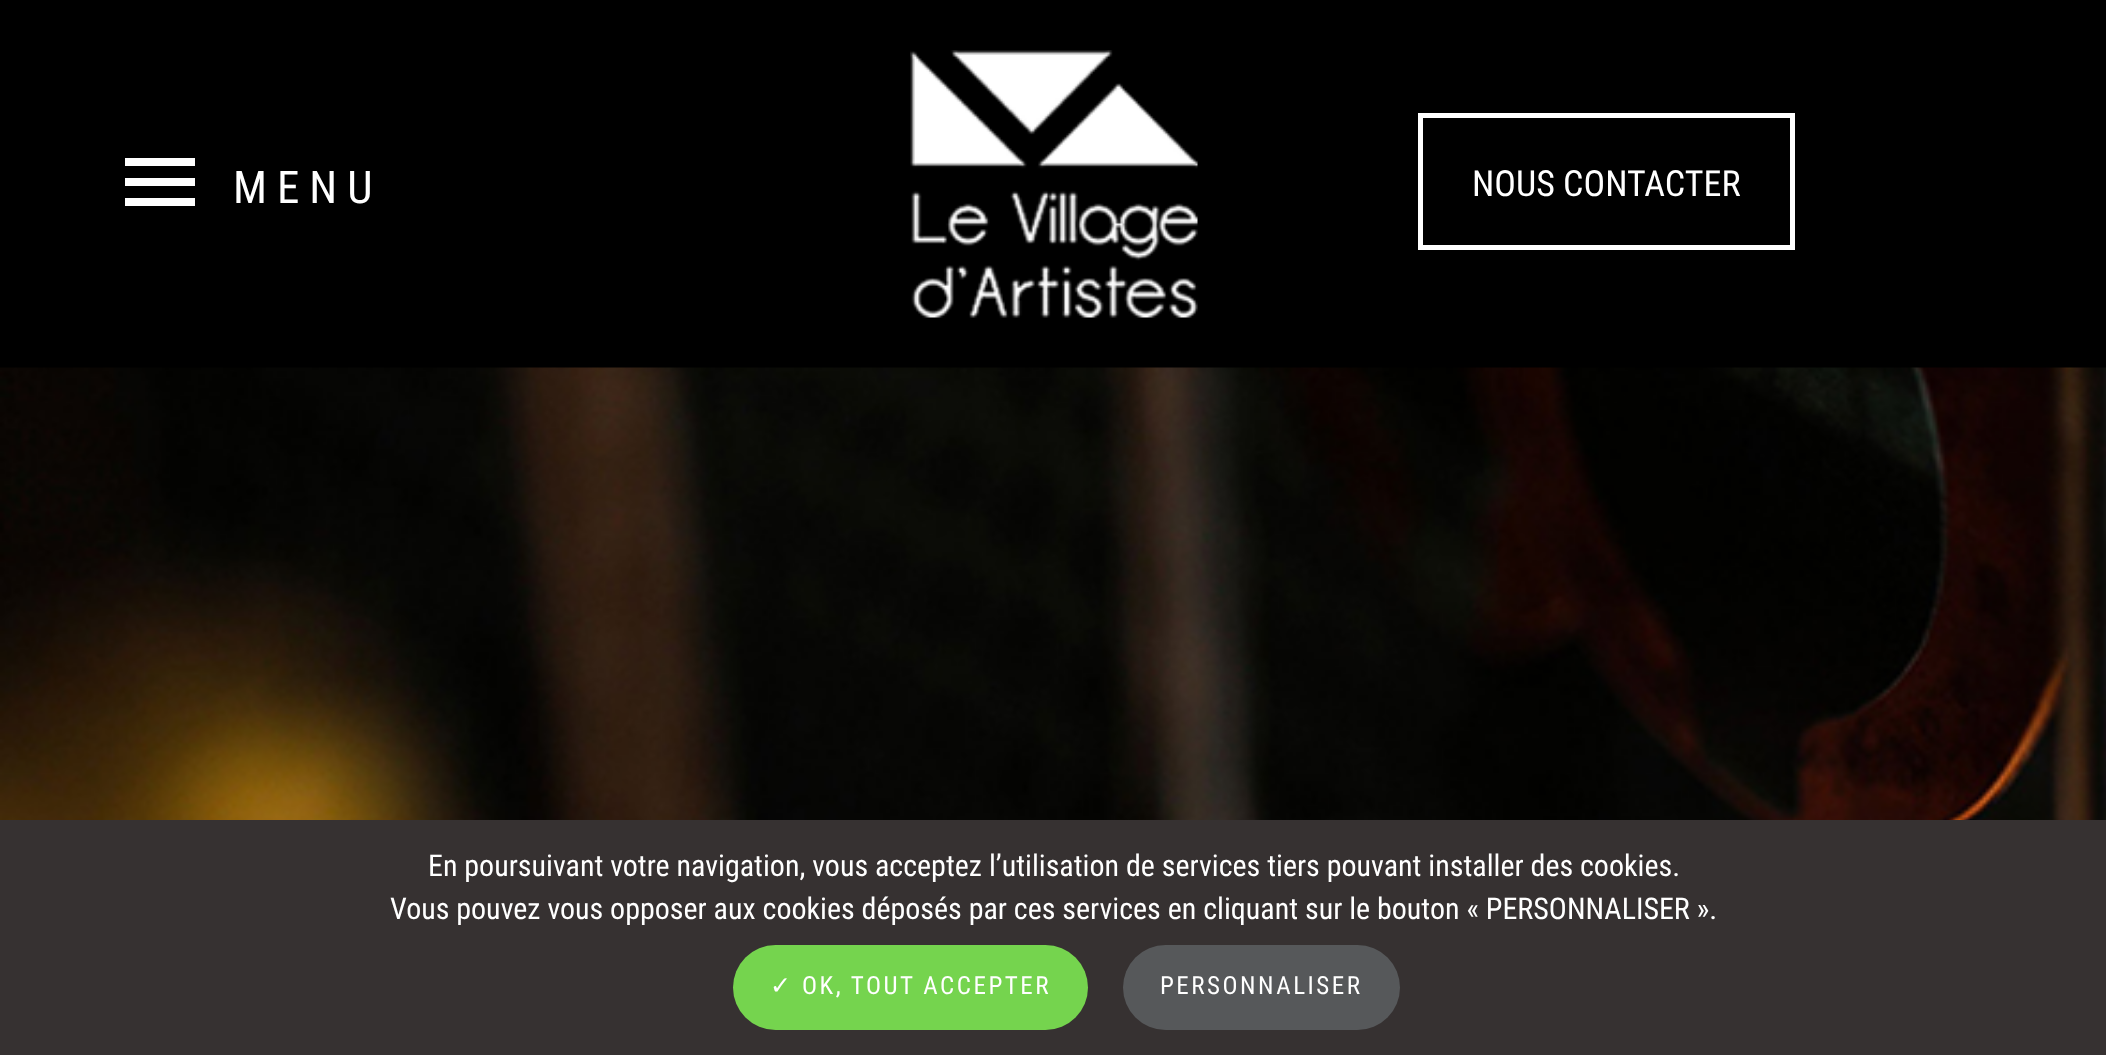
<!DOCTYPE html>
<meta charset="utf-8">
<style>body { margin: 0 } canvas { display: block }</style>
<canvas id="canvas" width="2106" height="1055"></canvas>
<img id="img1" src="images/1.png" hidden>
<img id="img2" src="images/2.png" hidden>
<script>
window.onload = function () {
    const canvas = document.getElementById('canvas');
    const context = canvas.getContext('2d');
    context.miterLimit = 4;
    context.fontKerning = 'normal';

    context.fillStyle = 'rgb(0, 0, 0)';
    context.fillRect(0, 0, 2106, 1055);
    context.fillStyle = 'rgb(255, 255, 255)';
    context.fillRect(125, 178, 70, 8);
    context.fillRect(125, 158, 70, 8);
    context.fillRect(125, 198, 70, 8);
    context.drawImage(document.getElementById('img1'), 910, 50, 288, 268);
    context.strokeStyle = 'rgb(255, 255, 255)';
    context.lineWidth = 5;
    context.strokeRect(1420.5, 115.5, 372, 132);
    context.drawImage(document.getElementById('img2'), 0, 367, 2106, 453);
    context.fillStyle = 'rgb(54, 49, 49)';
    context.fillRect(0, 820, 2106, 235);
    context.fillStyle = 'rgb(117, 212, 78)';
    context.beginPath();
    context.roundRect(733, 945, 355, 85, 42.5);
    context.fill();
    context.fillStyle = 'rgb(86, 88, 90)';
    context.beginPath();
    context.roundRect(1123, 945, 277, 85, 42.5);
    context.fill();
    context.letterSpacing = '10px';
    context.font = '45px Roboto Condensed';
    context.fillStyle = 'rgb(255, 255, 255)';
    context.fillText('MENU', 233, 203);
    context.letterSpacing = '0px';
    context.font = '36px Roboto Condensed';
    context.fillText('NOUS CONTACTER', 1472, 196);
    context.font = '30px Roboto Condensed';
    context.fillText('En poursuivant votre navigation, vous acceptez l’utilisation de services tiers pouvant installer des cookies.', 428, 876);
    context.fillText('Vous pouvez vous opposer aux cookies déposés par ces services en cliquant sur le bouton « PERSONNALISER ».', 390, 919);
    context.letterSpacing = '2.5px';
    context.font = '25px DejaVu Sans';
    context.fillText('✓', 770, 994);
    context.font = '25px Roboto Condensed';
    context.fillText('OK, TOUT ACCEPTER', 802, 994);
    context.fillText('PERSONNALISER', 1160, 994);
};
</script>
